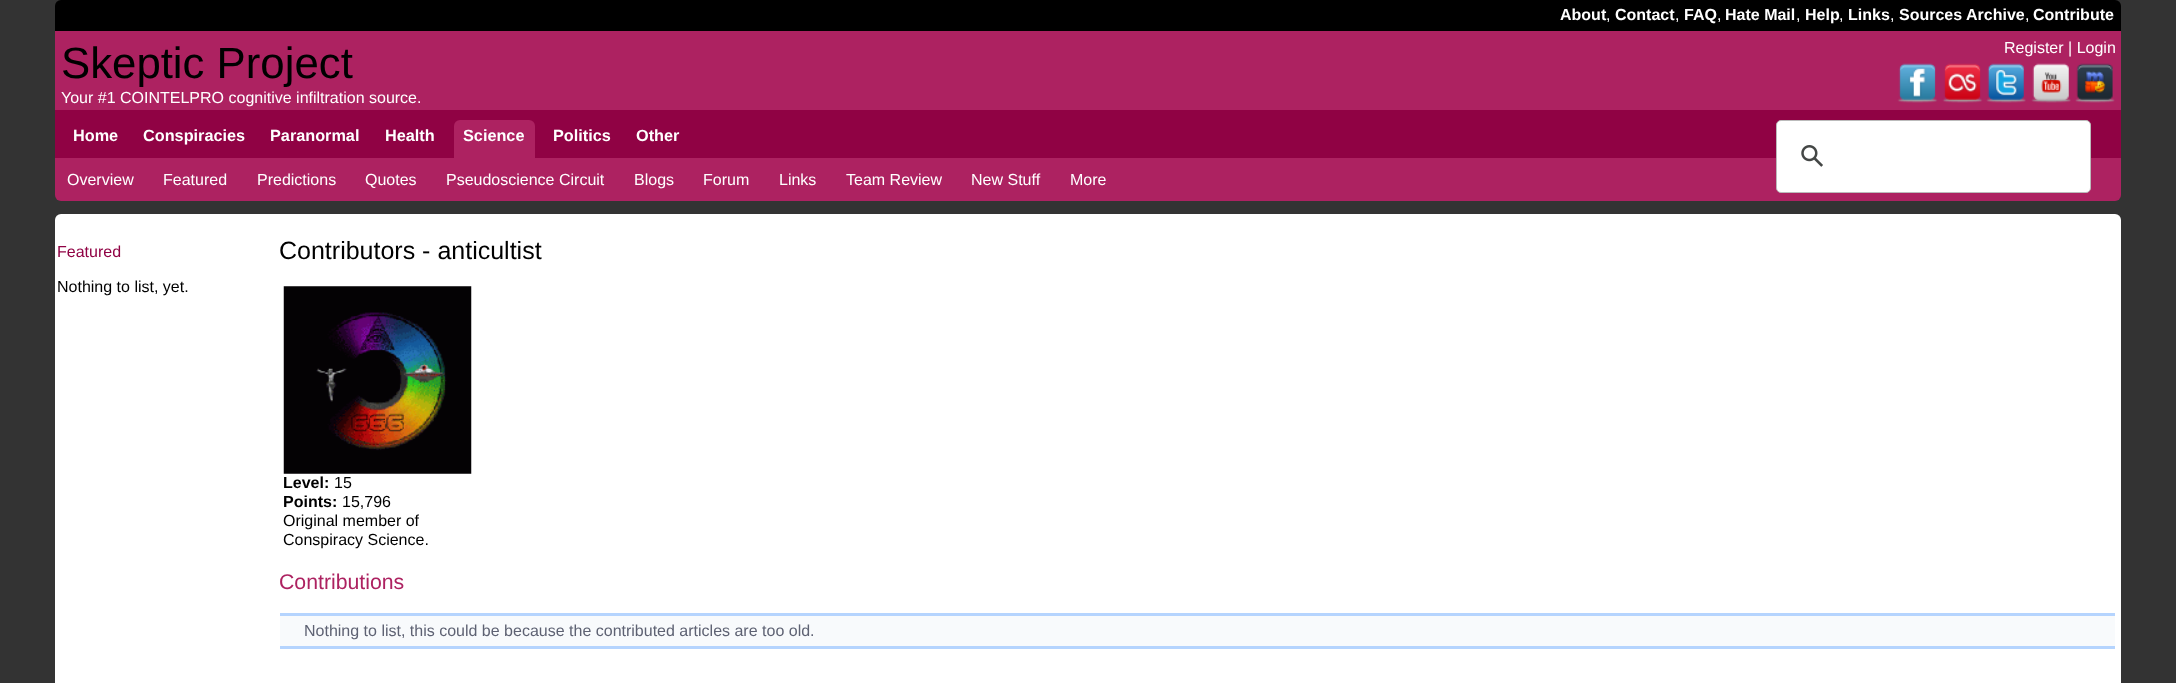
<!DOCTYPE html>
<meta charset="utf-8">
<style>body { margin: 0 } canvas { display: block }</style>
<canvas id="canvas" width="2176" height="683"></canvas>
<img id="img1" src="images/1.png" hidden>
<img id="img2" src="images/2.png" hidden>
<img id="img3" src="images/3.png" hidden>
<img id="img4" src="images/4.png" hidden>
<img id="img5" src="images/5.png" hidden>
<img id="img6" src="images/6.png" hidden>
<img id="img7" src="images/7.png" hidden>
<script>
window.onload = function () {
    const canvas = document.getElementById('canvas');
    const context = canvas.getContext('2d');
    context.miterLimit = 4;
    context.fontKerning = 'normal';

    context.fillStyle = 'rgb(51, 51, 51)';
    context.fillRect(0, 0, 2176, 683);
    context.fillStyle = 'rgb(0, 0, 0)';
    context.beginPath();
    context.roundRect(55, 0, 2066, 31, [6, 6, 0, 0]);
    context.fill();
    context.fillStyle = 'rgb(173, 34, 97)';
    context.fillRect(55, 31, 2066, 79);
    context.drawImage(document.getElementById('img1'), 1897, 63, 41, 40);
    context.drawImage(document.getElementById('img2'), 1942, 63, 41, 40);
    context.drawImage(document.getElementById('img3'), 1986, 63, 40, 40);
    context.drawImage(document.getElementById('img4'), 2031, 63, 40, 40);
    context.drawImage(document.getElementById('img5'), 2075, 63, 40, 40);
    context.fillStyle = 'rgb(144, 2, 68)';
    context.fillRect(55, 110, 2066, 48);
    context.fillStyle = 'rgb(173, 34, 97)';
    context.beginPath();
    context.roundRect(454, 120, 81, 38, [6, 6, 0, 0]);
    context.fill();
    context.beginPath();
    context.roundRect(55, 158, 2066, 43, [0, 0, 6, 6]);
    context.fill();
    context.fillStyle = 'rgb(255, 255, 255)';
    context.beginPath();
    context.roundRect(1776.5, 120.5, 314, 72, 4.5);
    context.fill();
    context.strokeStyle = 'rgb(187, 187, 187)';
    context.stroke();
    context.drawImage(document.getElementById('img6'), 1801, 145, 22, 22);
    context.beginPath();
    context.roundRect(55, 214, 2066, 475, 6);
    context.fill();
    context.drawImage(document.getElementById('img7'), 283, 286, 189, 188);
    context.fillStyle = 'rgb(248, 250, 252)';
    context.fillRect(280, 616, 1835, 30);
    context.fillStyle = 'rgb(181, 212, 254)';
    context.fillRect(280, 613, 1835, 3);
    context.fillRect(280, 646, 1835, 3);
    context.font = 'bold 16px Liberation Sans';
    context.fillStyle = 'rgb(255, 255, 255)';
    context.fillText('About', 1560, 20);
    context.font = '16px Liberation Sans';
    context.fillText(',', 1606, 20);
    context.font = 'bold 16px Liberation Sans';
    context.fillText('Contact', 1615, 20);
    context.font = '16px Liberation Sans';
    context.fillText(',', 1675, 20);
    context.font = 'bold 16px Liberation Sans';
    context.fillText('FAQ', 1684, 20);
    context.font = '16px Liberation Sans';
    context.fillText(',', 1717, 20);
    context.font = 'bold 16px Liberation Sans';
    context.fillText('Hate Mail', 1725, 20);
    context.font = '16px Liberation Sans';
    context.fillText(',', 1796, 20);
    context.font = 'bold 16px Liberation Sans';
    context.fillText('Help', 1805, 20);
    context.font = '16px Liberation Sans';
    context.fillText(',', 1839, 20);
    context.font = 'bold 16px Liberation Sans';
    context.fillText('Links', 1848, 20);
    context.font = '16px Liberation Sans';
    context.fillText(',', 1890, 20);
    context.font = 'bold 16px Liberation Sans';
    context.fillText('Sources Archive', 1899, 20);
    context.font = '16px Liberation Sans';
    context.fillText(',', 2025, 20);
    context.font = 'bold 16px Liberation Sans';
    context.fillText('Contribute', 2033, 20);
    context.font = '43.75px Liberation Sans';
    context.fillStyle = 'rgb(0, 0, 0)';
    context.fillText('Skeptic Project', 61, 78);
    context.font = '16px Liberation Sans';
    context.fillStyle = 'rgb(255, 255, 255)';
    context.fillText('Your #1 COINTELPRO cognitive infiltration source.', 61, 103);
    context.fillText('Register | Login', 2004, 53);
    context.font = 'bold 16.25px Liberation Sans';
    context.fillText('Home', 73, 141);
    context.fillText('Conspiracies', 143, 141);
    context.fillText('Paranormal', 270, 141);
    context.fillText('Health', 385, 141);
    context.fillText('Science', 463, 141);
    context.fillText('Politics', 553, 141);
    context.fillText('Other', 636, 141);
    context.font = '16px Liberation Sans';
    context.fillText('Overview', 67, 185);
    context.fillText('Featured', 163, 185);
    context.fillText('Predictions', 257, 185);
    context.fillText('Quotes', 365, 185);
    context.fillText('Pseudoscience Circuit', 446, 185);
    context.fillText('Blogs', 634, 185);
    context.fillText('Forum', 703, 185);
    context.fillText('Links', 779, 185);
    context.fillText('Team Review', 846, 185);
    context.fillText('New Stuff', 971, 185);
    context.fillText('More', 1070, 185);
    context.fillStyle = 'rgb(144, 2, 68)';
    context.fillText('Featured', 57, 257);
    context.fillStyle = 'rgb(0, 0, 0)';
    context.fillText('Nothing to list, yet.', 57, 292);
    context.font = '25px Liberation Sans';
    context.fillText('Contributors - anticultist', 279, 259);
    context.font = 'bold 16px Liberation Sans';
    context.fillText('Level:', 283, 488);
    context.font = '16px Liberation Sans';
    context.fillText('15', 334, 488);
    context.font = 'bold 16px Liberation Sans';
    context.fillText('Points:', 283, 507);
    context.font = '16px Liberation Sans';
    context.fillText('15,796', 342, 507);
    context.fillText('Original member of', 283, 526);
    context.fillText('Conspiracy Science.', 283, 545);
    context.font = '21.25px Liberation Sans';
    context.fillStyle = 'rgb(173, 34, 97)';
    context.fillText('Contributions', 279, 589);
    context.font = '16px Liberation Sans';
    context.fillStyle = 'rgb(94, 98, 115)';
    context.fillText('Nothing to list, this could be because the contributed articles are too old.', 304, 636);
};
</script>
